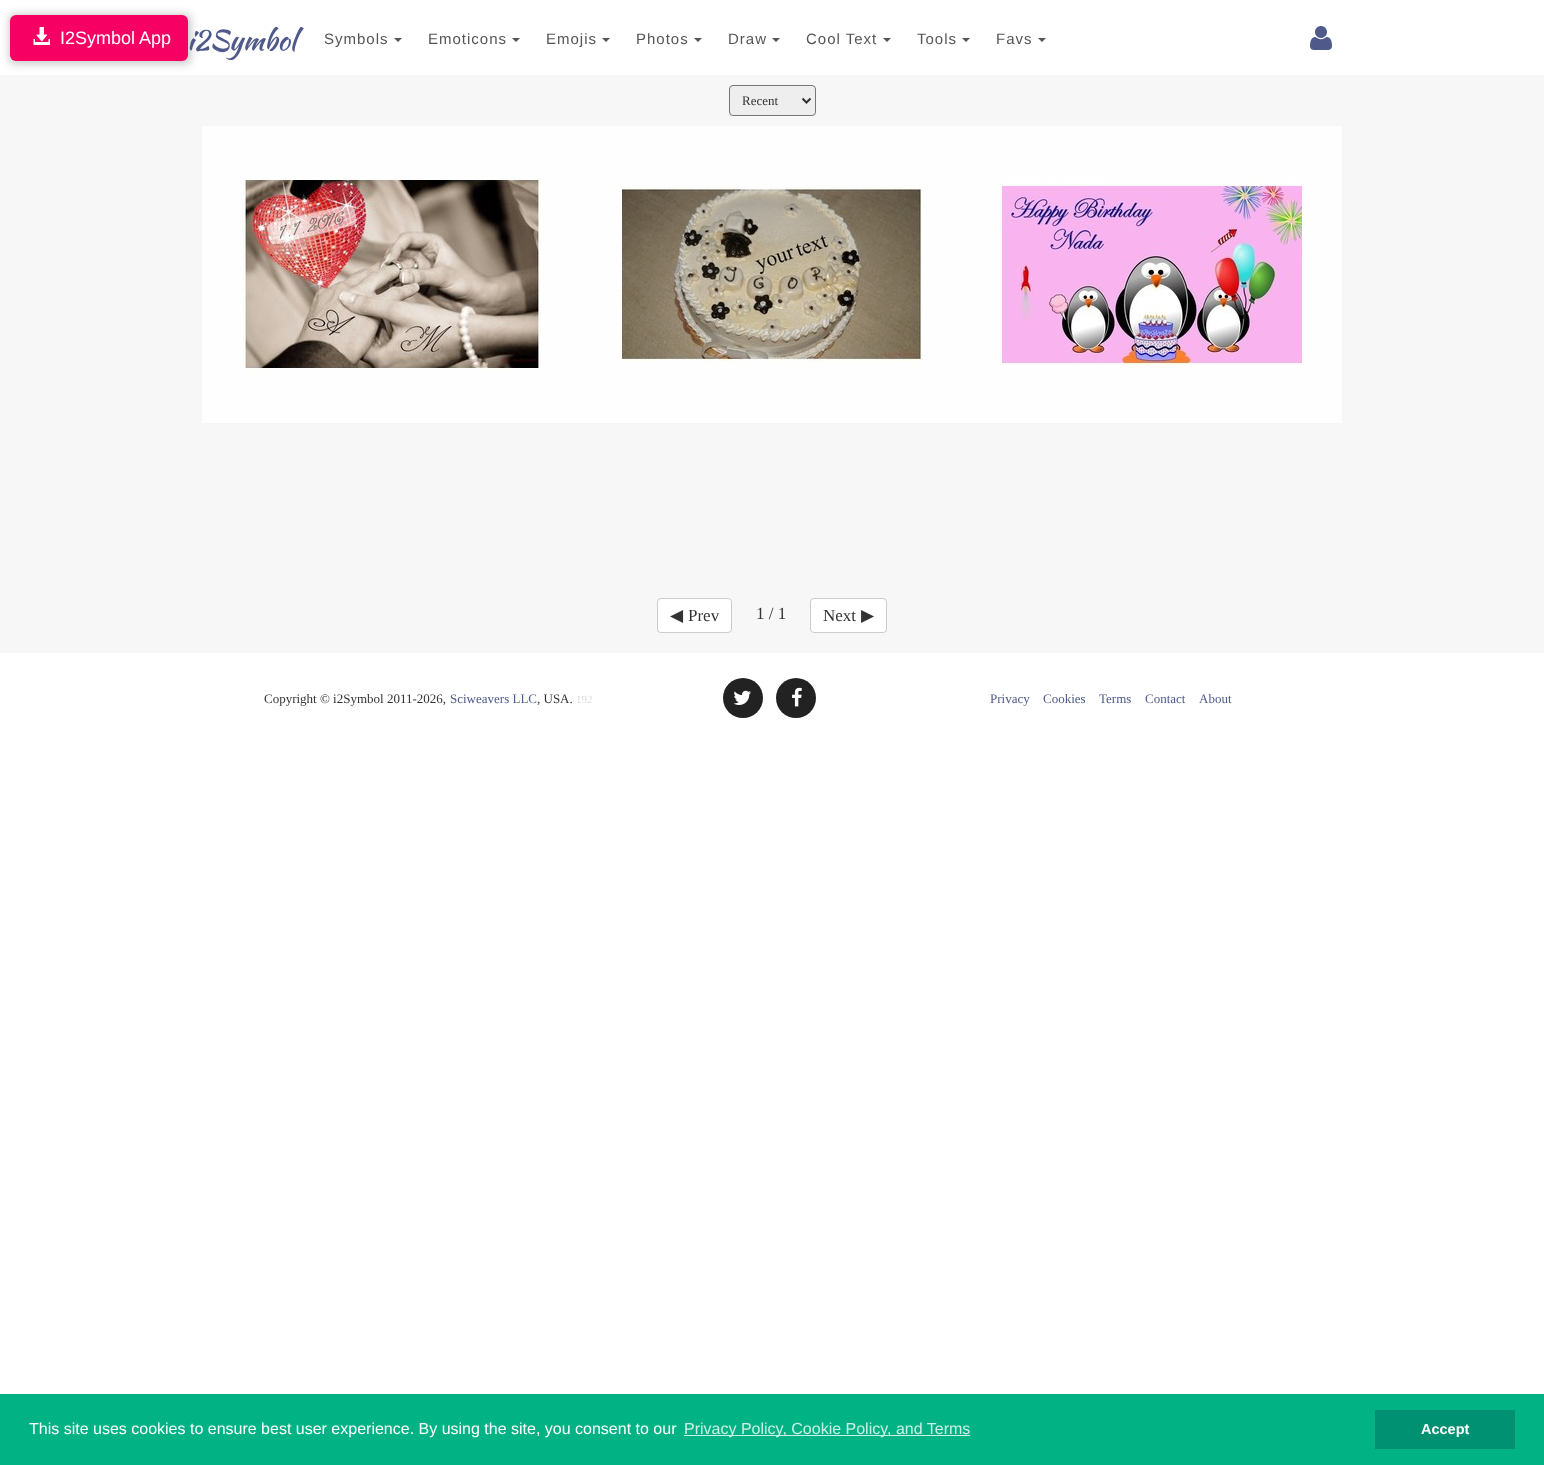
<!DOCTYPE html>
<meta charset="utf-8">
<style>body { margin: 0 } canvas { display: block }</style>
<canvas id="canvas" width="1544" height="1465"></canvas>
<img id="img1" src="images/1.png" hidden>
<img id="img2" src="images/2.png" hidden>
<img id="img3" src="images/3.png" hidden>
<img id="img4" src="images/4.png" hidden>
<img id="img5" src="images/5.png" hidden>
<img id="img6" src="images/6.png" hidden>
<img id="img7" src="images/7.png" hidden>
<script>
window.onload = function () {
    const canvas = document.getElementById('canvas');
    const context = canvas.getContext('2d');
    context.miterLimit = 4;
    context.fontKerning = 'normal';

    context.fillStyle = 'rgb(255, 255, 255)';
    context.fillRect(0, 0, 1544, 1465);
    context.fillStyle = 'rgb(247, 247, 247)';
    context.fillRect(0, 75, 1544, 578);
    context.fillStyle = 'rgba(0, 0, 0, 0.25)';
    context.filter = 'blur(5px)';
    context.beginPath();
    context.rect(10, 15, 180, 48);
    context.fill();
    context.filter = 'none';
    context.fillStyle = 'rgb(247, 0, 99)';
    context.beginPath();
    context.roundRect(10, 15, 178, 46, 6);
    context.fill();
    context.drawImage(document.getElementById('img1'), 33, 27, 17, 18);
    context.fillStyle = 'rgb(85, 85, 85)';
    context.beginPath();
    context.moveTo(394, 38);
    context.lineTo(402, 38);
    context.lineTo(398, 42);
    context.closePath();
    context.fill();
    context.beginPath();
    context.moveTo(512, 38);
    context.lineTo(520, 38);
    context.lineTo(516, 42);
    context.closePath();
    context.fill();
    context.beginPath();
    context.moveTo(602, 38);
    context.lineTo(610, 38);
    context.lineTo(606, 42);
    context.closePath();
    context.fill();
    context.beginPath();
    context.moveTo(694, 38);
    context.lineTo(702, 38);
    context.lineTo(698, 42);
    context.closePath();
    context.fill();
    context.beginPath();
    context.moveTo(772, 38);
    context.lineTo(780, 38);
    context.lineTo(776, 42);
    context.closePath();
    context.fill();
    context.beginPath();
    context.moveTo(883, 38);
    context.lineTo(891, 38);
    context.lineTo(887, 42);
    context.closePath();
    context.fill();
    context.beginPath();
    context.moveTo(962, 38);
    context.lineTo(970, 38);
    context.lineTo(966, 42);
    context.closePath();
    context.fill();
    context.beginPath();
    context.moveTo(1038, 38);
    context.lineTo(1046, 38);
    context.lineTo(1042, 42);
    context.closePath();
    context.fill();
    context.drawImage(document.getElementById('img2'), 1310, 26, 22, 24);
    context.fillStyle = 'rgb(238, 238, 238)';
    context.beginPath();
    context.roundRect(729.5, 85.5, 86, 30, 3.5);
    context.fill();
    context.strokeStyle = 'rgb(118, 118, 118)';
    context.stroke();
    context.beginPath();
    context.moveTo(802.5, 98.5);
    context.lineTo(806.5, 102.5);
    context.lineTo(810.5, 98.5);
    context.strokeStyle = 'rgb(51, 51, 51)';
    context.lineWidth = 2;
    context.stroke();
    context.fillStyle = 'rgb(254, 254, 254)';
    context.fillRect(202, 126, 1140, 297);
    context.drawImage(document.getElementById('img3'), 242, 178, 300, 192);
    context.drawImage(document.getElementById('img4'), 622, 186, 300, 176);
    context.drawImage(document.getElementById('img5'), 1002, 178, 300, 192);
    context.fillStyle = 'rgb(255, 255, 255)';
    context.beginPath();
    context.roundRect(657.5, 598.5, 74, 34, 3.5);
    context.fill();
    context.strokeStyle = 'rgb(204, 204, 204)';
    context.lineWidth = 1;
    context.stroke();
    context.beginPath();
    context.roundRect(810.5, 598.5, 76, 34, 3.5);
    context.fill();
    context.stroke();
    context.fillStyle = 'rgb(34, 34, 34)';
    context.beginPath();
    context.arc(743, 698, 20, 0, 2 * Math.PI);
    context.fill();
    context.drawImage(document.getElementById('img6'), 733, 690, 18, 15);
    context.beginPath();
    context.arc(796, 698, 20, 0, 2 * Math.PI);
    context.fill();
    context.drawImage(document.getElementById('img7'), 792, 687, 10, 20);
    context.fillStyle = 'rgb(0, 178, 132)';
    context.fillRect(0, 1394, 1544, 71);
    context.fillStyle = 'rgb(204, 240, 230)';
    context.fillRect(684, 1435, 286, 1);
    context.fillStyle = 'rgb(0, 145, 115)';
    context.fillRect(1375, 1410, 140, 39);
    context.font = '18px Liberation Sans';
    context.fillStyle = 'rgb(255, 255, 255)';
    context.fillText('I2Symbol App', 60, 44);
    context.font = '28px Kaushan Script';
    context.fillStyle = 'rgb(79, 90, 138)';
    context.fillText('i2Symbol', 187, 50);
    context.letterSpacing = '1px';
    context.font = '15px Liberation Sans';
    context.fillStyle = 'rgb(85, 85, 85)';
    context.fillText('Symbols', 324, 44);
    context.fillText('Emoticons', 428, 44);
    context.fillText('Emojis', 546, 44);
    context.fillText('Photos', 636, 44);
    context.fillText('Draw', 728, 44);
    context.fillText('Cool Text', 806, 44);
    context.fillText('Tools', 917, 44);
    context.fillText('Favs', 996, 44);
    context.letterSpacing = '0px';
    context.font = '13px Liberation Serif';
    context.fillStyle = 'rgb(51, 51, 51)';
    context.fillText('Recent', 742, 105);
    context.font = '17px DejaVu Sans';
    context.fillText('◀', 670, 621);
    context.font = '17px Liberation Serif';
    context.fillText('Prev', 688, 621);
    context.fillText('1 / 1', 756, 619);
    context.fillText('Next', 823, 621);
    context.font = '17px DejaVu Sans';
    context.fillText('▶', 861, 621);
    context.font = '13px Liberation Serif';
    context.fillText('Copyright © i2Symbol 2011-2026,', 264, 703);
    context.fillStyle = 'rgb(79, 90, 138)';
    context.fillText('Sciweavers LLC', 450, 703);
    context.fillStyle = 'rgb(51, 51, 51)';
    context.fillText(', USA.', 537, 703);
    context.font = '11px Liberation Serif';
    context.fillStyle = 'rgb(221, 221, 221)';
    context.fillText('192', 576, 703);
    context.font = '13px Liberation Serif';
    context.fillStyle = 'rgb(79, 90, 138)';
    context.fillText('Privacy', 990, 703);
    context.fillText('Cookies', 1043, 703);
    context.fillText('Terms', 1099, 703);
    context.fillText('Contact', 1145, 703);
    context.fillText('About', 1199, 703);
    context.font = '16px Liberation Sans';
    context.fillStyle = 'rgb(255, 255, 255)';
    context.fillText('This site uses cookies to ensure best user experience. By using the site, you consent to our', 29, 1434);
    context.fillStyle = 'rgb(204, 240, 230)';
    context.fillText('Privacy Policy, Cookie Policy, and Terms', 684, 1434);
    context.font = 'bold 14.5px Liberation Sans';
    context.fillStyle = 'rgb(255, 255, 255)';
    context.fillText('Accept', 1421, 1434);
};
</script>
